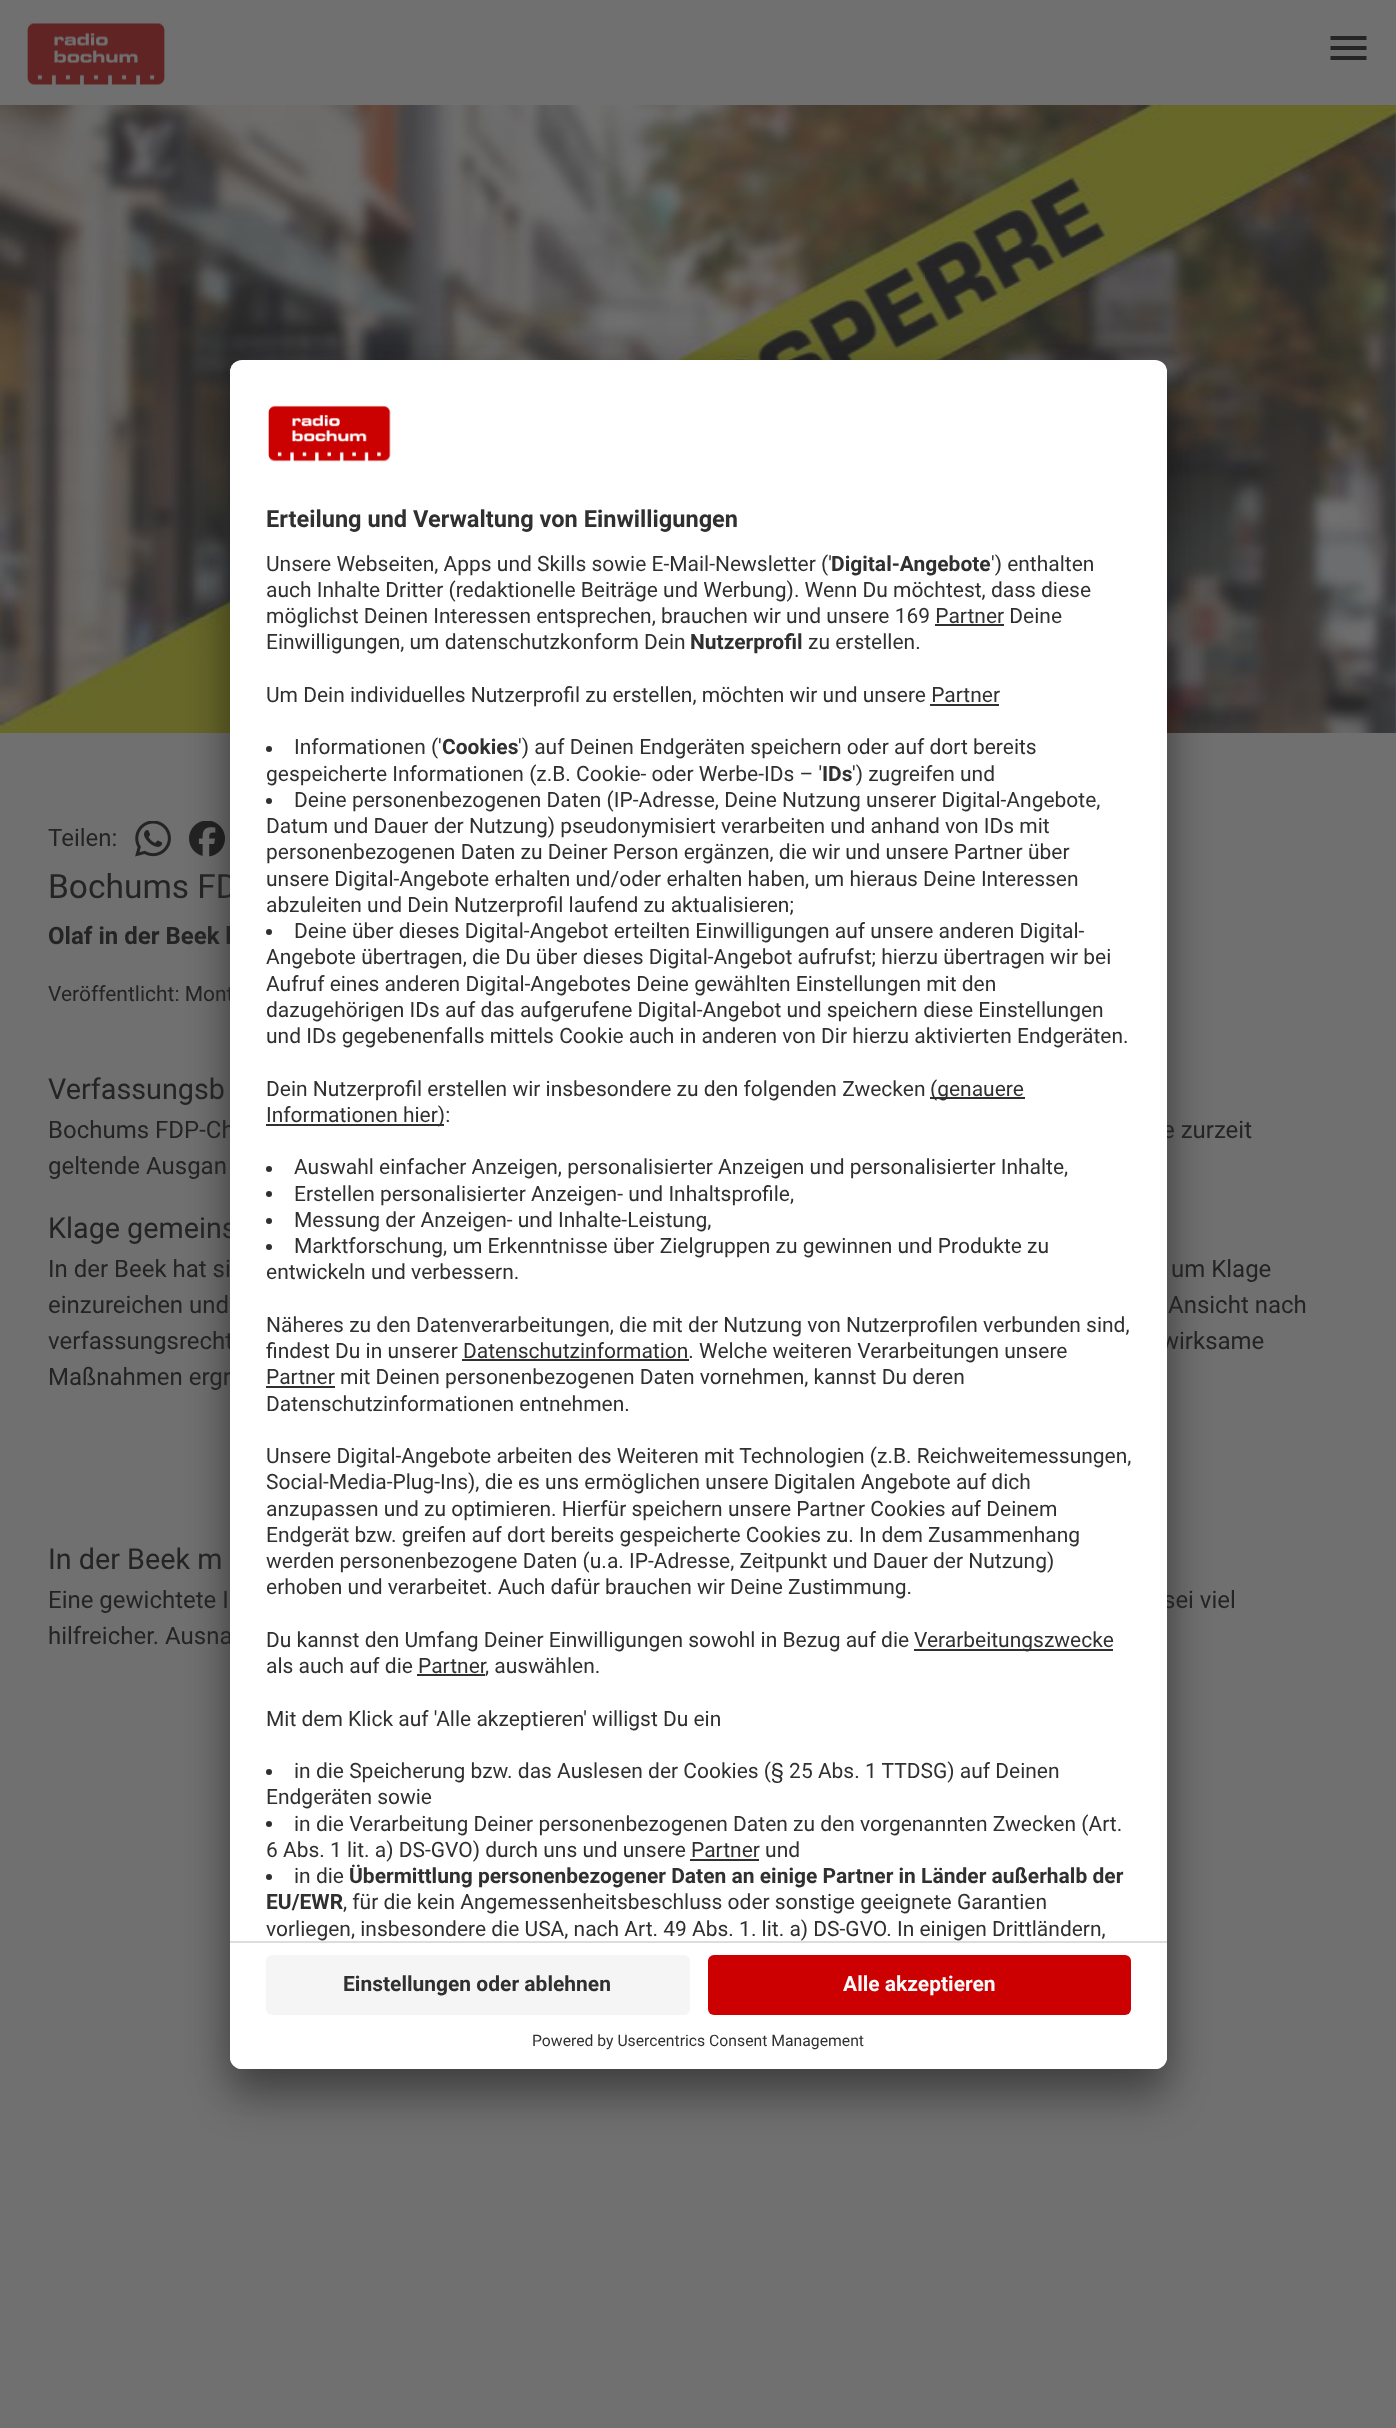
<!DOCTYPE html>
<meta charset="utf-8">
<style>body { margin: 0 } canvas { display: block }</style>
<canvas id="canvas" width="1396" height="2428"></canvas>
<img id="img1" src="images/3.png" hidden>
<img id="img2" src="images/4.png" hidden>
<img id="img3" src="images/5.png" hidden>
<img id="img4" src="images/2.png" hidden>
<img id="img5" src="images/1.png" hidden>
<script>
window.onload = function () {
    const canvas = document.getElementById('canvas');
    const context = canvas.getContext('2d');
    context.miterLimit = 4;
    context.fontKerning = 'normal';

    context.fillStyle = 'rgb(112, 112, 112)';
    context.fillRect(0, 0, 1396, 2428);
    context.drawImage(document.getElementById('img1'), 0, 105, 1396, 628);
    context.drawImage(document.getElementById('img2'), 135, 821, 36, 36);
    context.drawImage(document.getElementById('img3'), 189, 821, 36, 36);
    context.fillStyle = 'rgba(0, 0, 0, 0.3)';
    context.filter = 'blur(21px)';
    context.beginPath();
    context.roundRect(230, 390, 937, 1709, 12);
    context.fill();
    context.filter = 'none';
    context.fillStyle = 'rgba(0, 0, 0, 0.22)';
    context.filter = 'blur(19.5px)';
    context.beginPath();
    context.roundRect(230, 368, 937, 1708, 12);
    context.fill();
    context.filter = 'none';
    context.drawImage(document.getElementById('img4'), 27, 22, 138, 63);
    context.fillStyle = 'rgb(36, 36, 36)';
    context.beginPath();
    context.moveTo(1330.5, 60);
    context.lineTo(1330.5, 56);
    context.lineTo(1366.5, 56);
    context.lineTo(1366.5, 60);
    context.closePath();
    context.moveTo(1330.5, 50);
    context.lineTo(1330.5, 46);
    context.lineTo(1366.5, 46);
    context.lineTo(1366.5, 50);
    context.closePath();
    context.moveTo(1330.5, 40);
    context.lineTo(1330.5, 36);
    context.lineTo(1366.5, 36);
    context.lineTo(1366.5, 40);
    context.closePath();
    context.fill();
    context.font = '24px Roboto';
    context.fillText('Teilen:', 48, 846);
    context.font = '33.5px Roboto';
    context.fillText('Bochums FD', 48, 898);
    context.font = 'bold 24px Roboto';
    context.fillText('Olaf in der Beek h', 48, 944);
    context.font = '21px Roboto';
    context.fillText('Veröffentlicht: Mont', 48, 1001);
    context.font = '28.75px Roboto';
    context.fillText('Verfassungsb', 48, 1099);
    context.font = '24px Roboto';
    context.fillText('Bochums FDP-Ch', 48, 1138);
    context.fillText('e zurzeit', 1162, 1138);
    context.fillText('geltende Ausgan', 48, 1174);
    context.font = '28.75px Roboto';
    context.fillText('Klage gemeins', 48, 1238);
    context.font = '24px Roboto';
    context.fillText('In der Beek hat si', 48, 1277);
    context.fillText('um Klage', 1171, 1277);
    context.fillText('einzureichen und', 48, 1313);
    context.fillText('Ansicht nach', 1168, 1313);
    context.fillText('verfassungsrecht', 48, 1349);
    context.fillText('wirksame', 1161, 1349);
    context.fillText('Maßnahmen ergr', 48, 1385);
    context.font = '28.75px Roboto';
    context.fillText('In der Beek m', 48, 1569);
    context.font = '24px Roboto';
    context.fillText('Eine gewichtete I', 48, 1608);
    context.fillText('sei viel', 1163, 1608);
    context.fillText('hilfreicher. Ausna', 48, 1644);
    context.fillStyle = 'rgb(255, 255, 255)';
    context.beginPath();
    context.roundRect(230, 360, 937, 1709, 12);
    context.fill();
    context.save();
    context.beginPath();
    context.roundRect(230, 360, 937, 1709, 12);
    context.clip();
    context.beginPath();
    context.roundRect(230, 360, 937, 1581, [12, 12, 0, 0]);
    context.clip();
    context.fillRect(230, 362, 937, 1579);
    context.restore();
    context.drawImage(document.getElementById('img5'), 268, 405, 123, 57);
    context.font = '21px Roboto';
    context.fillStyle = 'rgb(48, 48, 48)';
    context.fillText('vorliegen, insbesondere die USA, nach Art. 49 Abs. 1. lit. a) DS-GVO. In einigen Drittländern,', 266, 1936);
    context.font = 'bold 21px Roboto';
    context.fillText('EU/EWR', 266, 1909);
    context.font = '21px Roboto';
    context.fillText(', für die kein Angemessenheitsbeschluss oder sonstige geeignete Garantien', 343, 1909);
    context.font = 'bold 21px Roboto';
    context.fillText('Übermittlung personenbezogener Daten an einige Partner in Länder außerhalb der', 349, 1883);
    context.font = '21px Roboto';
    context.fillText('in die', 294, 1883);
    context.beginPath();
    context.arc(269, 1877, 3, 0, 2 * Math.PI);
    context.fill();
    context.fillRect(690, 1859, 69, 2);
    context.fillText('6 Abs. 1 lit. a) DS-GVO) durch uns und unsere Partner und', 266, 1857);
    context.fillText('in die Verarbeitung Deiner personenbezogenen Daten zu den vorgenannten Zwecken (Art.', 294, 1831);
    context.beginPath();
    context.arc(269, 1824, 3, 0, 2 * Math.PI);
    context.fill();
    context.fillText('Endgeräten sowie', 266, 1804);
    context.fillText('in die Speicherung bzw. das Auslesen der Cookies (§ 25 Abs. 1 TTDSG) auf Deinen', 294, 1778);
    context.beginPath();
    context.arc(269, 1772, 3, 0, 2 * Math.PI);
    context.fill();
    context.fillText('Mit dem Klick auf \'Alle akzeptieren\' willigst Du ein', 266, 1726);
    context.fillText('als auch auf die Partner', 266, 1673);
    context.fillText(', auswählen.', 485, 1673);
    context.fillRect(417, 1674, 68, 2);
    context.fillRect(914, 1649, 199, 2);
    context.fillText('Verarbeitungszwecke', 914, 1647);
    context.fillText('Du kannst den Umfang Deiner Einwilligungen sowohl in Bezug auf die', 266, 1647);
    context.fillText('erhoben und verarbeitet. Auch dafür brauchen wir Deine Zustimmung.', 266, 1594);
    context.fillText('werden personenbezogene Daten (u.a. IP-Adresse, Zeitpunkt und Dauer der Nutzung)', 266, 1568);
    context.fillText('Endgerät bzw. greifen auf dort bereits gespeicherte Cookies zu. In dem Zusammenhang', 266, 1542);
    context.fillText('anzupassen und zu optimieren. Hierfür speichern unsere Partner Cookies auf Deinem', 266, 1516);
    context.fillText('Social-Media-Plug-Ins), die es uns ermöglichen unsere Digitalen Angebote auf dich', 266, 1489);
    context.fillText('Unsere Digital-Angebote arbeiten des Weiteren mit Technologien (z.B. Reichweitemessungen,', 266, 1463);
    context.fillText('Datenschutzinformationen entnehmen.', 266, 1411);
    context.fillRect(266, 1386, 69, 2);
    context.fillText('Partner mit Deinen personenbezogenen Daten vornehmen, kannst Du deren', 266, 1384);
    context.fillRect(462, 1359, 227, 2);
    context.fillText('findest Du in unserer Datenschutzinformation. Welche weiteren Verarbeitungen unsere', 266, 1358);
    context.fillText('Näheres zu den Datenverarbeitungen, die mit der Nutzung von Nutzerprofilen verbunden sind,', 266, 1332);
    context.fillText('entwickeln und verbessern.', 266, 1279);
    context.fillText('Marktforschung, um Erkenntnisse über Zielgruppen zu gewinnen und Produkte zu', 294, 1253);
    context.beginPath();
    context.arc(269, 1247, 3, 0, 2 * Math.PI);
    context.fill();
    context.fillText('Messung der Anzeigen- und Inhalte-Leistung,', 294, 1227);
    context.beginPath();
    context.arc(269, 1221, 3, 0, 2 * Math.PI);
    context.fill();
    context.fillText('Erstellen personalisierter Anzeigen- und Inhaltsprofile,', 294, 1201);
    context.beginPath();
    context.arc(269, 1194, 3, 0, 2 * Math.PI);
    context.fill();
    context.fillText('Auswahl einfacher Anzeigen, personalisierter Anzeigen und personalisierter Inhalte,', 294, 1174);
    context.beginPath();
    context.arc(269, 1169, 3, 0, 2 * Math.PI);
    context.fill();
    context.fillRect(266, 1124, 178, 2);
    context.fillText('Informationen hier):', 266, 1122);
    context.fillRect(930, 1097, 95, 2);
    context.fillText('(genauere', 930, 1096);
    context.fillText('Dein Nutzerprofil erstellen wir insbesondere zu den folgenden Zwecken', 266, 1096);
    context.fillText('und IDs gegebenenfalls mittels Cookie auch in anderen von Dir hierzu aktivierten Endgeräten.', 266, 1043);
    context.fillText('dazugehörigen IDs auf das aufgerufene Digital-Angebot und speichern diese Einstellungen', 266, 1017);
    context.fillText('Aufruf eines anderen Digital-Angebotes Deine gewählten Einstellungen mit den', 266, 991);
    context.fillText('Angebote übertragen, die Du über dieses Digital-Angebot aufrufst; hierzu übertragen wir bei', 266, 964);
    context.fillText('Deine über dieses Digital-Angebot erteilten Einwilligungen auf unsere anderen Digital-', 294, 938);
    context.beginPath();
    context.arc(269, 932, 3, 0, 2 * Math.PI);
    context.fill();
    context.fillText('abzuleiten und Dein Nutzerprofil laufend zu aktualisieren;', 266, 912);
    context.fillText('unsere Digital-Angebote erhalten und/oder erhalten haben, um hieraus Deine Interessen', 266, 886);
    context.fillText('personenbezogenen Daten zu Deiner Person ergänzen, die wir und unsere Partner über', 266, 859);
    context.fillText('Datum und Dauer der Nutzung) pseudonymisiert verarbeiten und anhand von IDs mit', 266, 833);
    context.fillText('Deine personenbezogenen Daten (IP-Adresse, Deine Nutzung unserer Digital-Angebote,', 294, 807);
    context.beginPath();
    context.arc(269, 801, 3, 0, 2 * Math.PI);
    context.fill();
    context.fillText('\') zugreifen und', 852, 781);
    context.font = 'bold 21px Roboto';
    context.fillText('IDs', 822, 781);
    context.font = '21px Roboto';
    context.fillText('gespeicherte Informationen (z.B. Cookie- oder Werbe-IDs – \'', 266, 781);
    context.fillText('\') auf Deinen Endgeräten speichern oder auf dort bereits', 518, 754);
    context.font = 'bold 21px Roboto';
    context.fillText('Cookies', 442, 754);
    context.font = '21px Roboto';
    context.fillText('Informationen (\'', 294, 754);
    context.beginPath();
    context.arc(269, 749, 3, 0, 2 * Math.PI);
    context.fill();
    context.fillRect(930, 704, 69, 2);
    context.fillText('Um Dein individuelles Nutzerprofil zu erstellen, möchten wir und unsere Partner', 266, 702);
    context.fillText('zu erstellen.', 808, 649);
    context.font = 'bold 21px Roboto';
    context.fillText('Nutzerprofil', 690, 649);
    context.font = '21px Roboto';
    context.fillText('Einwilligungen, um datenschutzkonform Dein', 266, 649);
    context.fillRect(935, 624, 69, 2);
    context.fillText('möglichst Deinen Interessen entsprechen, brauchen wir und unsere 169 Partner Deine', 266, 623);
    context.fillText('auch Inhalte Dritter (redaktionelle Beiträge und Werbung). Wenn Du möchtest, dass diese', 266, 597);
    context.fillText('\') enthalten', 991, 571);
    context.font = 'bold 21px Roboto';
    context.fillText('Digital-Angebote', 831, 571);
    context.font = '21px Roboto';
    context.fillText('Unsere Webseiten, Apps und Skills sowie E-Mail-Newsletter (\'', 266, 571);
    context.font = 'bold 23.6px Roboto';
    context.fillText('Erteilung und Verwaltung von Einwilligungen', 266, 527);
    context.fillStyle = 'rgb(255, 255, 255)';
    context.beginPath();
    context.roundRect(230, 1941, 937, 128, [0, 0, 12, 12]);
    context.fill();
    context.font = '15.75px Roboto';
    context.fillStyle = 'rgb(48, 48, 48)';
    context.fillText('Powered by Usercentrics Consent Management', 532, 2046);
    context.fillStyle = 'rgb(204, 0, 0)';
    context.beginPath();
    context.roundRect(708, 1955, 423, 60, 6);
    context.fill();
    context.font = 'bold 21px Roboto';
    context.fillStyle = 'rgb(250, 250, 250)';
    context.fillText('Alle akzeptieren', 843, 1991);
    context.fillStyle = 'rgb(245, 245, 245)';
    context.beginPath();
    context.roundRect(266, 1955, 424, 60, 6);
    context.fill();
    context.fillStyle = 'rgb(48, 48, 48)';
    context.fillText('Einstellungen oder ablehnen', 343, 1991);
    context.fillStyle = 'rgb(221, 221, 221)';
    context.fillRect(230, 1941, 937, 2);
};
</script>
